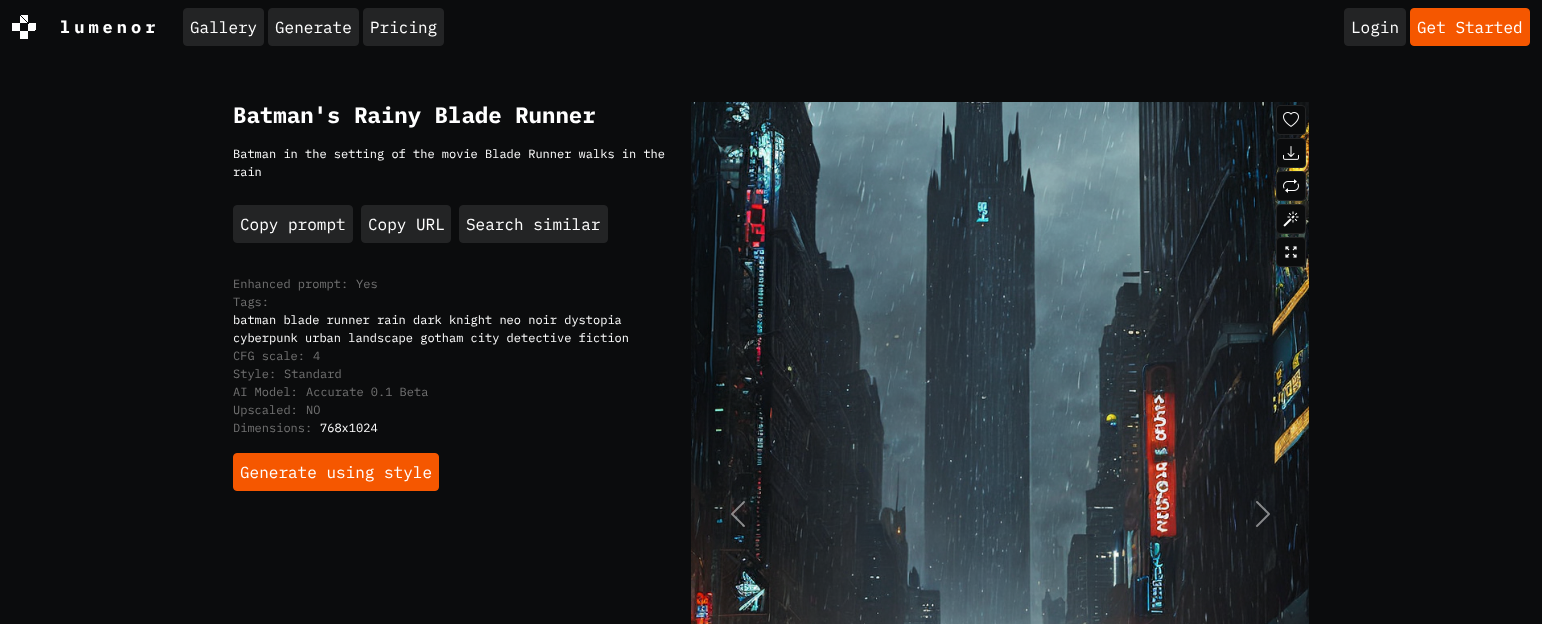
<!DOCTYPE html>
<meta charset="utf-8">
<style>body { margin: 0 } canvas { display: block }</style>
<canvas id="canvas" width="1542" height="624"></canvas>
<img id="img1" src="images/1.png" hidden>
<img id="img2" src="images/2.png" hidden>
<img id="img3" src="images/3.png" hidden>
<img id="img4" src="images/4.png" hidden>
<img id="img5" src="images/5.png" hidden>
<img id="img6" src="images/6.png" hidden>
<img id="img7" src="images/7.png" hidden>
<img id="img8" src="images/8.png" hidden>
<script>
window.onload = function () {
    const canvas = document.getElementById('canvas');
    const context = canvas.getContext('2d');
    context.miterLimit = 4;
    context.fontKerning = 'normal';
    let gradient;

    context.fillStyle = 'rgb(11, 12, 13)';
    context.fillRect(0, 0, 1542, 624);
    gradient = context.createLinearGradient(20, 23, 36, 7);
    gradient.addColorStop(0.25, 'rgb(255, 255, 255)');
    gradient.addColorStop(0.25, 'rgb(11, 12, 13)');
    gradient.addColorStop(0.75, 'rgb(11, 12, 13)');
    gradient.addColorStop(0.75, 'rgb(255, 255, 255)');
    gradient.addColorStop(1, 'rgb(255, 255, 255)');
    context.fillStyle = gradient;
    context.fillRect(20, 16, 7, 7);
    gradient = context.createLinearGradient(4, 39, 20, 23);
    gradient.addColorStop(0.25, 'rgb(255, 255, 255)');
    gradient.addColorStop(0.25, 'rgb(11, 12, 13)');
    gradient.addColorStop(0.75, 'rgb(11, 12, 13)');
    gradient.addColorStop(0.75, 'rgb(255, 255, 255)');
    gradient.addColorStop(1, 'rgb(255, 255, 255)');
    context.fillStyle = gradient;
    context.fillRect(12, 23, 8, 16);
    gradient = context.createLinearGradient(20, 39, 36, 23);
    gradient.addColorStop(0.25, 'rgb(255, 255, 255)');
    gradient.addColorStop(0.25, 'rgb(11, 12, 13)');
    gradient.addColorStop(0.75, 'rgb(11, 12, 13)');
    gradient.addColorStop(0.75, 'rgb(255, 255, 255)');
    gradient.addColorStop(1, 'rgb(255, 255, 255)');
    context.fillStyle = gradient;
    context.fillRect(20, 23, 16, 16);
    gradient = context.createLinearGradient(12, 31, 28, 15);
    gradient.addColorStop(0.25, 'rgb(255, 255, 255)');
    gradient.addColorStop(0.25, 'rgba(255, 255, 255, 0)');
    gradient.addColorStop(0.75, 'rgba(255, 255, 255, 0)');
    gradient.addColorStop(0.75, 'rgb(255, 255, 255)');
    gradient.addColorStop(1, 'rgb(255, 255, 255)');
    context.fillStyle = gradient;
    context.fillRect(12, 15, 16, 16);
    gradient = context.createLinearGradient(28, 31, 44, 15);
    gradient.addColorStop(0.25, 'rgb(255, 255, 255)');
    gradient.addColorStop(0.25, 'rgba(255, 255, 255, 0)');
    gradient.addColorStop(0.75, 'rgba(255, 255, 255, 0)');
    gradient.addColorStop(0.75, 'rgb(255, 255, 255)');
    gradient.addColorStop(1, 'rgb(255, 255, 255)');
    context.fillStyle = gradient;
    context.fillRect(28, 24, 7, 7);
    gradient = context.createLinearGradient(12, 47, 28, 31);
    gradient.addColorStop(0.25, 'rgb(255, 255, 255)');
    gradient.addColorStop(0.25, 'rgba(255, 255, 255, 0)');
    gradient.addColorStop(0.75, 'rgba(255, 255, 255, 0)');
    gradient.addColorStop(0.75, 'rgb(255, 255, 255)');
    gradient.addColorStop(1, 'rgb(255, 255, 255)');
    context.fillStyle = gradient;
    context.fillRect(12, 31, 16, 8);
    context.fillStyle = 'rgb(35, 36, 37)';
    context.beginPath();
    context.roundRect(183.5, 8.5, 80, 37, 3.5);
    context.fill();
    context.strokeStyle = 'rgb(35, 36, 37)';
    context.stroke();
    context.beginPath();
    context.roundRect(268.5, 8.5, 90, 37, 3.5);
    context.fill();
    context.stroke();
    context.beginPath();
    context.roundRect(363.5, 8.5, 80, 37, 3.5);
    context.fill();
    context.stroke();
    context.beginPath();
    context.roundRect(1344.5, 8.5, 61, 37, 3.5);
    context.fill();
    context.stroke();
    context.fillStyle = 'rgb(245, 87, 0)';
    context.beginPath();
    context.roundRect(1410.5, 8.5, 119, 37, 3.5);
    context.fill();
    context.strokeStyle = 'rgb(245, 87, 0)';
    context.stroke();
    context.fillStyle = 'rgb(35, 36, 37)';
    context.beginPath();
    context.roundRect(233.5, 205.5, 119, 37, 3.5);
    context.fill();
    context.strokeStyle = 'rgb(35, 36, 37)';
    context.stroke();
    context.beginPath();
    context.roundRect(361.5, 205.5, 89, 37, 3.5);
    context.fill();
    context.stroke();
    context.beginPath();
    context.roundRect(459.5, 205.5, 148, 37, 3.5);
    context.fill();
    context.stroke();
    context.fillStyle = 'rgb(245, 87, 0)';
    context.beginPath();
    context.roundRect(233.5, 453.5, 205, 37, 3.5);
    context.fill();
    context.strokeStyle = 'rgb(245, 87, 0)';
    context.stroke();
    context.drawImage(document.getElementById('img1'), 691, 102, 618, 522);
    context.fillStyle = 'rgb(11, 12, 13)';
    context.beginPath();
    context.roundRect(1276.5, 105.5, 29, 29, 3.5);
    context.fill();
    context.strokeStyle = 'rgb(35, 36, 37)';
    context.stroke();
    context.drawImage(document.getElementById('img2'), 1283, 112, 16, 15);
    context.beginPath();
    context.roundRect(1276.5, 138.5, 29, 29, 3.5);
    context.fill();
    context.stroke();
    context.drawImage(document.getElementById('img3'), 1283, 146, 16, 14);
    context.beginPath();
    context.roundRect(1276.5, 171.5, 29, 29, 3.5);
    context.fill();
    context.stroke();
    context.drawImage(document.getElementById('img4'), 1283, 179, 16, 14);
    context.beginPath();
    context.roundRect(1276.5, 204.5, 29, 29, 3.5);
    context.fill();
    context.stroke();
    context.drawImage(document.getElementById('img5'), 1283, 211, 16, 16);
    context.beginPath();
    context.roundRect(1276.5, 237.5, 29, 29, 3.5);
    context.fill();
    context.stroke();
    context.drawImage(document.getElementById('img6'), 1285, 246, 12, 12);
    context.drawImage(document.getElementById('img7'), 731, 501, 14, 26);
    context.drawImage(document.getElementById('img8'), 1256, 501, 14, 26);
    context.letterSpacing = '4px';
    context.font = 'bold 17px IBM Plex Mono';
    context.fillStyle = 'rgb(255, 255, 255)';
    context.fillText('lumenor', 60, 33);
    context.letterSpacing = '0px';
    context.font = '16px IBM Plex Mono';
    context.fillText('Gallery', 190, 33);
    context.fillText('Generate', 275, 33);
    context.fillText('Pricing', 370, 33);
    context.fillText('Login', 1351, 33);
    context.fillText('Get Started', 1417, 33);
    context.font = 'bold 22.4px IBM Plex Mono';
    context.fillText('Batman\'s Rainy Blade Runner', 233, 123);
    context.font = '12px IBM Plex Mono';
    context.fillText('Batman in the setting of the movie Blade Runner walks in the', 233, 158);
    context.fillText('rain', 233, 176);
    context.font = '16px IBM Plex Mono';
    context.fillText('Copy prompt', 240, 230);
    context.fillText('Copy URL', 368, 230);
    context.fillText('Search similar', 466, 230);
    context.font = '12px IBM Plex Mono';
    context.fillStyle = 'rgb(114, 114, 114)';
    context.fillText('Enhanced prompt:', 233, 288);
    context.fillText('Yes', 356, 288);
    context.fillText('Tags:', 233, 306);
    context.fillStyle = 'rgb(255, 255, 255)';
    context.fillText('batman blade runner rain dark knight neo noir dystopia', 233, 324);
    context.fillText('cyberpunk urban landscape gotham city detective fiction', 233, 342);
    context.fillStyle = 'rgb(114, 114, 114)';
    context.fillText('CFG scale:', 233, 360);
    context.fillText('4', 313, 360);
    context.fillText('Style:', 233, 378);
    context.fillText('Standard', 284, 378);
    context.fillText('AI Model:', 233, 396);
    context.fillText('Accurate 0.1 Beta', 306, 396);
    context.fillText('Upscaled:', 233, 414);
    context.fillText('NO', 306, 414);
    context.fillText('Dimensions:', 233, 432);
    context.fillStyle = 'rgb(255, 255, 255)';
    context.fillText('768x1024', 320, 432);
    context.font = '16px IBM Plex Mono';
    context.fillText('Generate using style', 240, 478);
};
</script>
